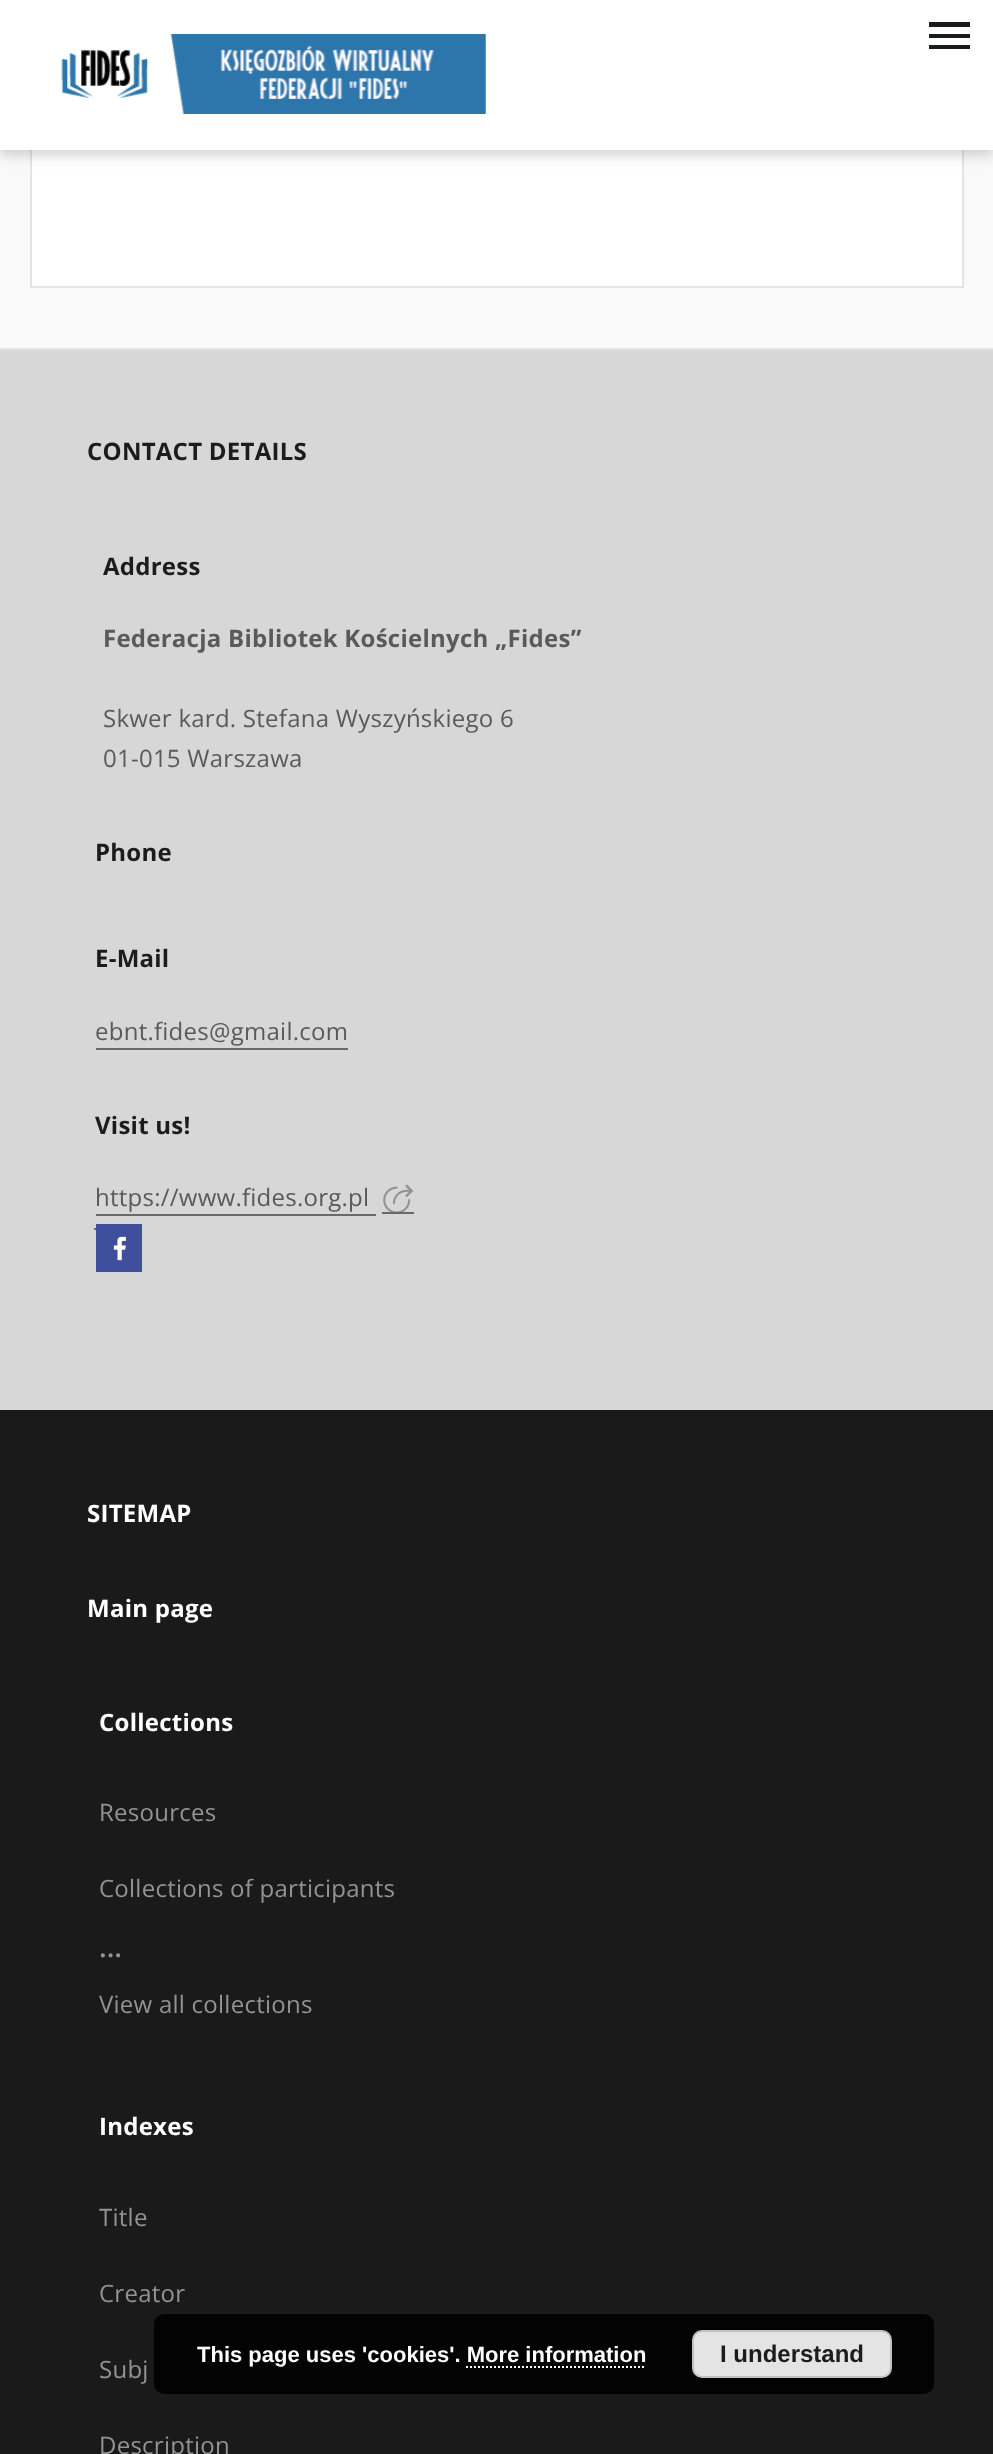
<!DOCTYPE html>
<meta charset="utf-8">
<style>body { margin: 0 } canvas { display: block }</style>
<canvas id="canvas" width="993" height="2454"></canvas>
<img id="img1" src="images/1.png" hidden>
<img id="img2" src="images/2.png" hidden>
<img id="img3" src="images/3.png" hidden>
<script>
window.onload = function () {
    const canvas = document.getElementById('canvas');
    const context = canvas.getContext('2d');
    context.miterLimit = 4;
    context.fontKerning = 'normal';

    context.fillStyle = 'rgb(249, 249, 249)';
    context.fillRect(0, 0, 993, 2454);
    context.fillStyle = 'rgb(255, 255, 255)';
    context.fillRect(32, 150, 930, 136);
    context.fillStyle = 'rgb(228, 228, 228)';
    context.fillRect(962, 150, 2, 138);
    context.fillRect(30, 286, 934, 2);
    context.fillRect(30, 150, 2, 138);
    context.fillStyle = 'rgba(0, 0, 0, 0.08)';
    context.filter = 'blur(10px)';
    context.beginPath();
    context.rect(0, 2, 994, 150);
    context.fill();
    context.filter = 'none';
    context.fillStyle = 'rgba(0, 0, 0, 0.06)';
    context.filter = 'blur(5px)';
    context.beginPath();
    context.rect(0, 8, 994, 150);
    context.fill();
    context.filter = 'none';
    context.filter = 'blur(4px)';
    context.beginPath();
    context.rect(2, 6, 990, 146);
    context.fill();
    context.filter = 'none';
    context.fillStyle = 'rgb(255, 255, 255)';
    context.fillRect(0, 0, 993, 150);
    context.drawImage(document.getElementById('img1'), 61, 34, 425, 80);
    context.fillStyle = 'rgb(26, 27, 28)';
    context.beginPath();
    context.moveTo(970, 27);
    context.lineTo(929, 27);
    context.lineTo(929, 22);
    context.lineTo(970, 22);
    context.closePath();
    context.moveTo(970, 34);
    context.lineTo(929, 34);
    context.lineTo(929, 38);
    context.lineTo(970, 38);
    context.closePath();
    context.moveTo(970, 45);
    context.lineTo(929, 45);
    context.lineTo(929, 49);
    context.lineTo(970, 49);
    context.closePath();
    context.fill();
    context.fillStyle = 'rgb(215, 215, 215)';
    context.fillRect(0, 350, 993, 1060);
    context.fillStyle = 'rgb(228, 228, 228)';
    context.fillRect(0, 348, 993, 2);
    context.fillStyle = 'rgb(105, 105, 105)';
    context.fillRect(96, 1048, 252, 2);
    context.fillRect(96, 1214, 280, 2);
    context.fillRect(382, 1212, 32, 2);
    context.drawImage(document.getElementById('img2'), 383, 1184, 31, 28);
    context.fillRect(94, 1228, 2, 2);
    context.fillStyle = 'rgb(63, 79, 156)';
    context.fillRect(96, 1224, 46, 48);
    context.drawImage(document.getElementById('img3'), 113, 1236, 13, 25);
    context.fillStyle = 'rgb(27, 26, 26)';
    context.fillRect(0, 1410, 993, 1044);
    context.fillStyle = 'rgba(0, 0, 0, 0.85)';
    context.beginPath();
    context.roundRect(154, 2314, 780, 80, 10);
    context.fill();
    context.fillStyle = 'rgb(228, 228, 228)';
    context.beginPath();
    context.roundRect(693, 2331, 198, 46, 9);
    context.fill();
    context.strokeStyle = 'rgb(193, 193, 193)';
    context.lineWidth = 2;
    context.stroke();
    context.beginPath();
    context.moveTo(466, 2367);
    context.lineTo(646, 2367);
    context.strokeStyle = 'rgb(255, 255, 255)';
    context.setLineDash([2, 2]);
    context.stroke();
    context.letterSpacing = '0.25px';
    context.font = 'bold 24px Open Sans';
    context.fillStyle = 'rgb(28, 28, 28)';
    context.fillText('CONTACT DETAILS', 87, 460);
    context.fillText('Address', 103, 575);
    context.fillStyle = 'rgb(90, 90, 90)';
    context.fillText('Federacja Bibliotek Kościelnych „Fides”', 103, 647);
    context.font = '24px Open Sans';
    context.fillText('Skwer kard. Stefana Wyszyńskiego 6', 103, 727);
    context.fillText('01-015 Warszawa', 103, 767);
    context.font = 'bold 24px Open Sans';
    context.fillStyle = 'rgb(28, 28, 28)';
    context.fillText('Phone', 95, 861);
    context.fillText('E-Mail', 95, 967);
    context.font = '24px Open Sans';
    context.fillStyle = 'rgb(90, 90, 90)';
    context.fillText('ebnt.fides@gmail.com', 95, 1040);
    context.font = 'bold 24px Open Sans';
    context.fillStyle = 'rgb(28, 28, 28)';
    context.fillText('Visit us!', 95, 1134);
    context.font = '24px Open Sans';
    context.fillStyle = 'rgb(90, 90, 90)';
    context.fillText('https://www.fides.org.pl', 95, 1206);
    context.font = 'bold 24px Open Sans';
    context.fillStyle = 'rgb(255, 255, 255)';
    context.fillText('SITEMAP', 87, 1522);
    context.fillText('Main page', 87, 1617);
    context.fillText('Collections', 99, 1731);
    context.font = '24px Open Sans';
    context.fillStyle = 'rgb(147, 147, 147)';
    context.fillText('Resources', 99, 1821);
    context.fillText('Collections of participants', 99, 1897);
    context.letterSpacing = '0px';
    context.font = '600 28px Open Sans';
    context.fillText('...', 99, 1957);
    context.letterSpacing = '0.25px';
    context.font = '24px Open Sans';
    context.fillText('View all collections', 99, 2013);
    context.font = 'bold 24px Open Sans';
    context.fillStyle = 'rgb(255, 255, 255)';
    context.fillText('Indexes', 99, 2135);
    context.font = '24px Open Sans';
    context.fillStyle = 'rgb(147, 147, 147)';
    context.fillText('Title', 99, 2226);
    context.fillText('Creator', 99, 2302);
    context.fillText('Subj', 99, 2378);
    context.fillText('Description', 99, 2454);
    context.letterSpacing = '0px';
    context.font = 'bold 22px Liberation Sans';
    context.fillStyle = 'rgb(255, 255, 255)';
    context.fillText('This page uses \'cookies\'. More information', 197, 2362);
    context.font = 'bold 24px Liberation Sans';
    context.fillStyle = 'rgb(28, 28, 28)';
    context.fillText('I understand', 720, 2362);
};
</script>
